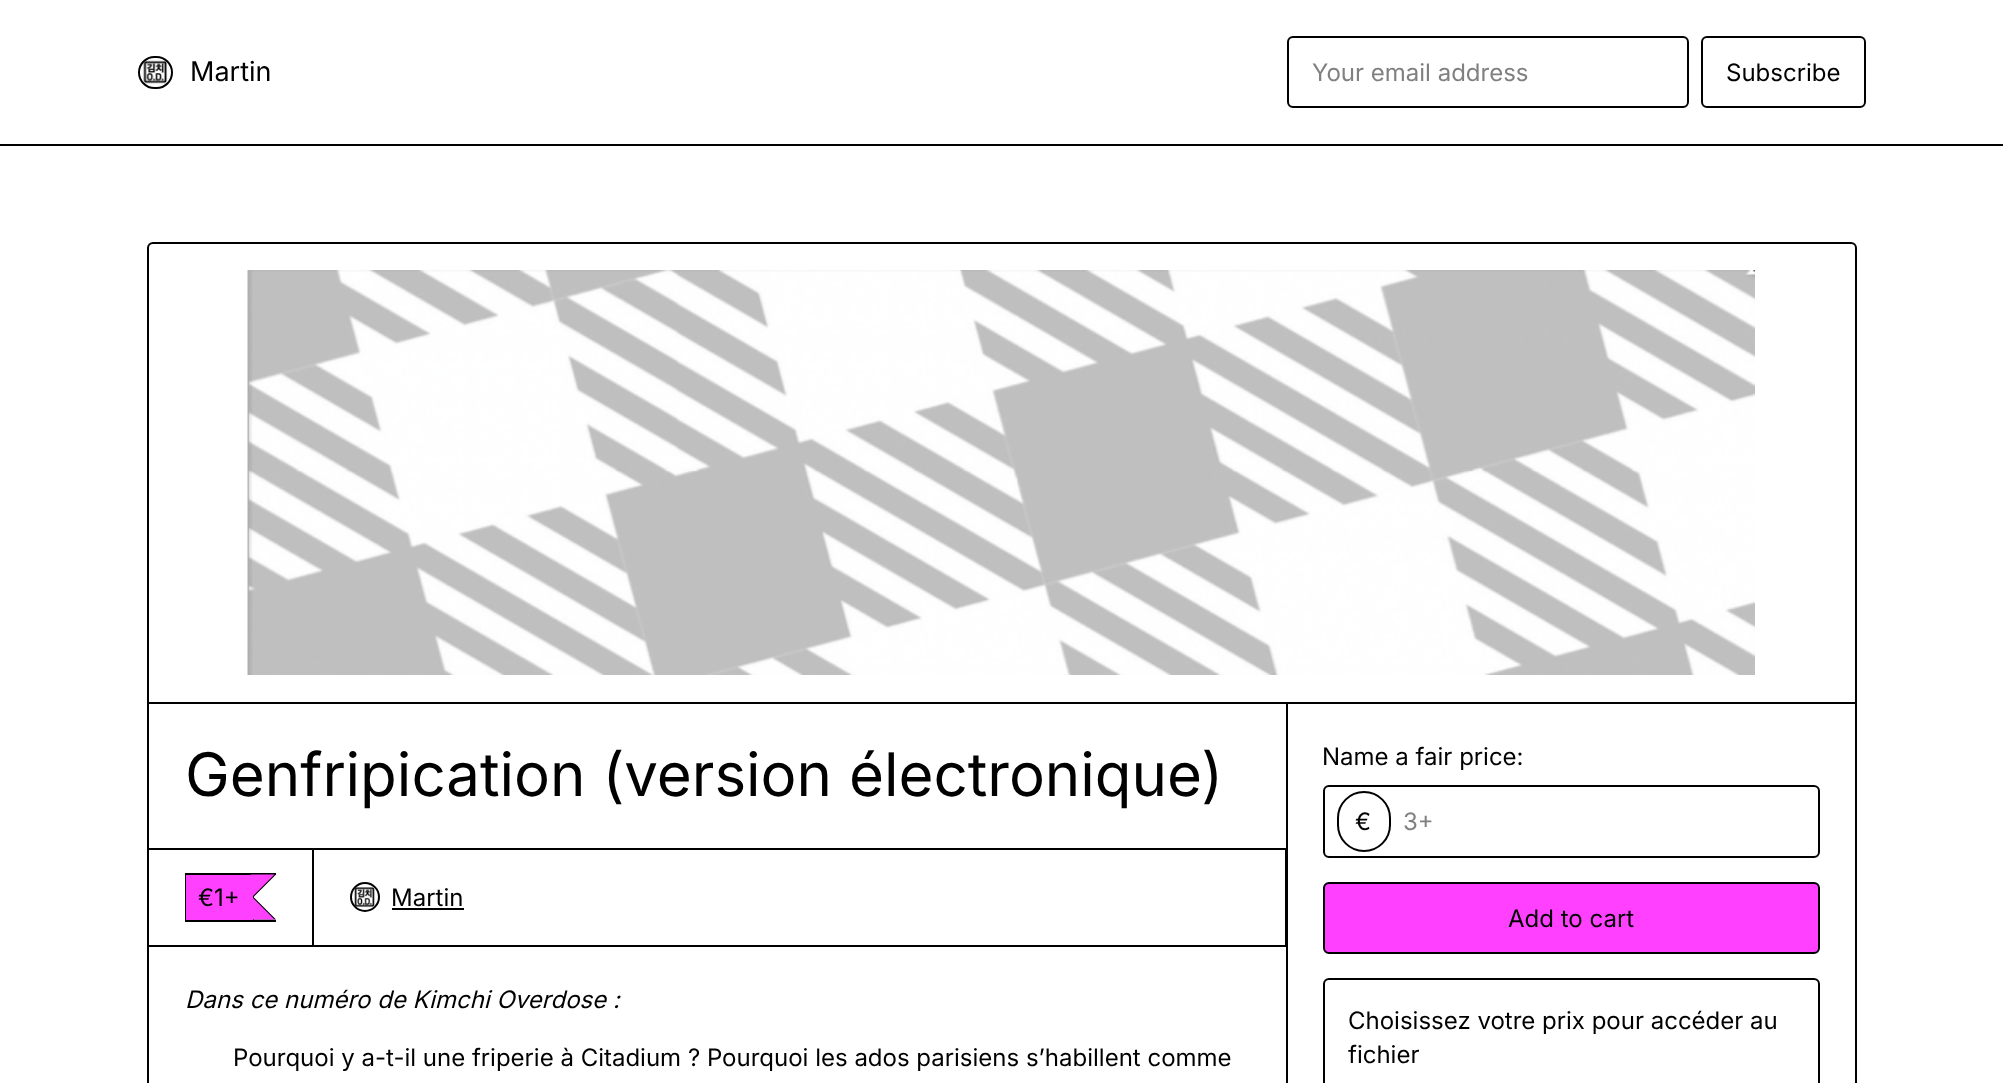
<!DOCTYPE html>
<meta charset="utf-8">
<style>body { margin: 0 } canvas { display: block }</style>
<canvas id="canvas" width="2003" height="1083"></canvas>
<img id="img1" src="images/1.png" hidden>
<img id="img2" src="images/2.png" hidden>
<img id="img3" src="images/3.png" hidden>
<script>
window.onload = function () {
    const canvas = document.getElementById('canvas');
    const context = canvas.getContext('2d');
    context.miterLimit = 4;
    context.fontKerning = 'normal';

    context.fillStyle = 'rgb(255, 255, 255)';
    context.fillRect(0, 0, 2003, 1083);
    context.fillStyle = 'rgb(0, 0, 0)';
    context.fillRect(0, 144, 2003, 2);
    context.beginPath();
    context.roundRect(139, 57, 33, 31, 15.5);
    context.strokeStyle = 'rgb(0, 0, 0)';
    context.lineWidth = 2;
    context.stroke();
    context.drawImage(document.getElementById('img1'), 143, 60, 25, 24);
    context.beginPath();
    context.roundRect(1288, 37, 400, 70, 5);
    context.stroke();
    context.beginPath();
    context.roundRect(1702, 37, 163, 70, 5);
    context.stroke();
    context.beginPath();
    context.roundRect(148, 243, 1708, 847, 5);
    context.stroke();
    context.fillRect(149, 702, 1707, 2);
    context.drawImage(document.getElementById('img2'), 247, 270, 1508, 405);
    context.fillRect(1286, 704, 2, 379);
    context.strokeRect(148, 849, 165, 97);
    context.fillRect(185, 873, 91, 2);
    context.fillRect(185, 920, 91, 2);
    context.fillRect(185, 873, 2, 48);
    context.fillStyle = 'rgb(255, 64, 255)';
    context.fillRect(186, 875, 65, 45);
    context.fillStyle = 'rgb(0, 0, 0)';
    context.beginPath();
    context.moveTo(252, 874.5);
    context.lineTo(276, 874.5);
    context.lineTo(253.5, 897);
    context.closePath();
    context.moveTo(276, 919.5);
    context.lineTo(252, 919.5);
    context.lineTo(253.5, 897);
    context.closePath();
    context.fill();
    context.fillRect(253, 895, 1, 25);
    context.fillStyle = 'rgb(255, 64, 255)';
    context.beginPath();
    context.moveTo(250.5, 874.5);
    context.lineTo(274.5, 874.5);
    context.lineTo(252, 897);
    context.closePath();
    context.moveTo(274.5, 919.5);
    context.lineTo(250.5, 919.5);
    context.lineTo(252, 897);
    context.closePath();
    context.fill();
    context.fillRect(251, 875, 2, 45);
    context.strokeRect(313, 849, 973, 97);
    context.beginPath();
    context.arc(365, 897, 14, 0, 2 * Math.PI);
    context.stroke();
    context.drawImage(document.getElementById('img3'), 354, 887, 21, 21);
    context.fillStyle = 'rgb(0, 0, 0)';
    context.fillRect(392, 908, 72, 2);
    context.beginPath();
    context.roundRect(1324, 786, 495, 71, 5);
    context.stroke();
    context.beginPath();
    context.roundRect(1338, 792, 52, 59, 26);
    context.stroke();
    context.fillStyle = 'rgb(255, 64, 255)';
    context.beginPath();
    context.roundRect(1324, 883, 495, 70, 5);
    context.fill();
    context.stroke();
    context.beginPath();
    context.roundRect(1324, 979, 495, 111, 5);
    context.stroke();
    context.font = '27px Inter';
    context.fillStyle = 'rgb(0, 0, 0)';
    context.fillText('Martin', 190, 81);
    context.font = '24px Inter';
    context.fillStyle = 'rgb(128, 128, 128)';
    context.fillText('Your email address', 1312, 81);
    context.fillStyle = 'rgb(0, 0, 0)';
    context.fillText('Subscribe', 1726, 81);
    context.font = '60px Inter';
    context.fillText('Genfripication (version électronique)', 185, 796);
    context.font = '24px Inter';
    context.fillText('€1+', 198, 906);
    context.fillText('Martin', 391, 906);
    context.font = 'italic 24px Inter';
    context.fillText('Dans ce numéro de Kimchi Overdose :', 185, 1008);
    context.font = '24px Inter';
    context.fillText('Pourquoi y a-t-il une friperie à Citadium ? Pourquoi les ados parisiens s’habillent comme', 233, 1066);
    context.fillText('Name a fair price:', 1322, 765);
    context.fillText('€', 1355, 830);
    context.fillStyle = 'rgb(128, 128, 128)';
    context.fillText('3+', 1403, 830);
    context.fillStyle = 'rgb(0, 0, 0)';
    context.fillText('Add to cart', 1508, 927);
    context.fillText('Choisissez votre prix pour accéder au', 1348, 1029);
    context.fillText('fichier', 1348, 1063);
};
</script>
